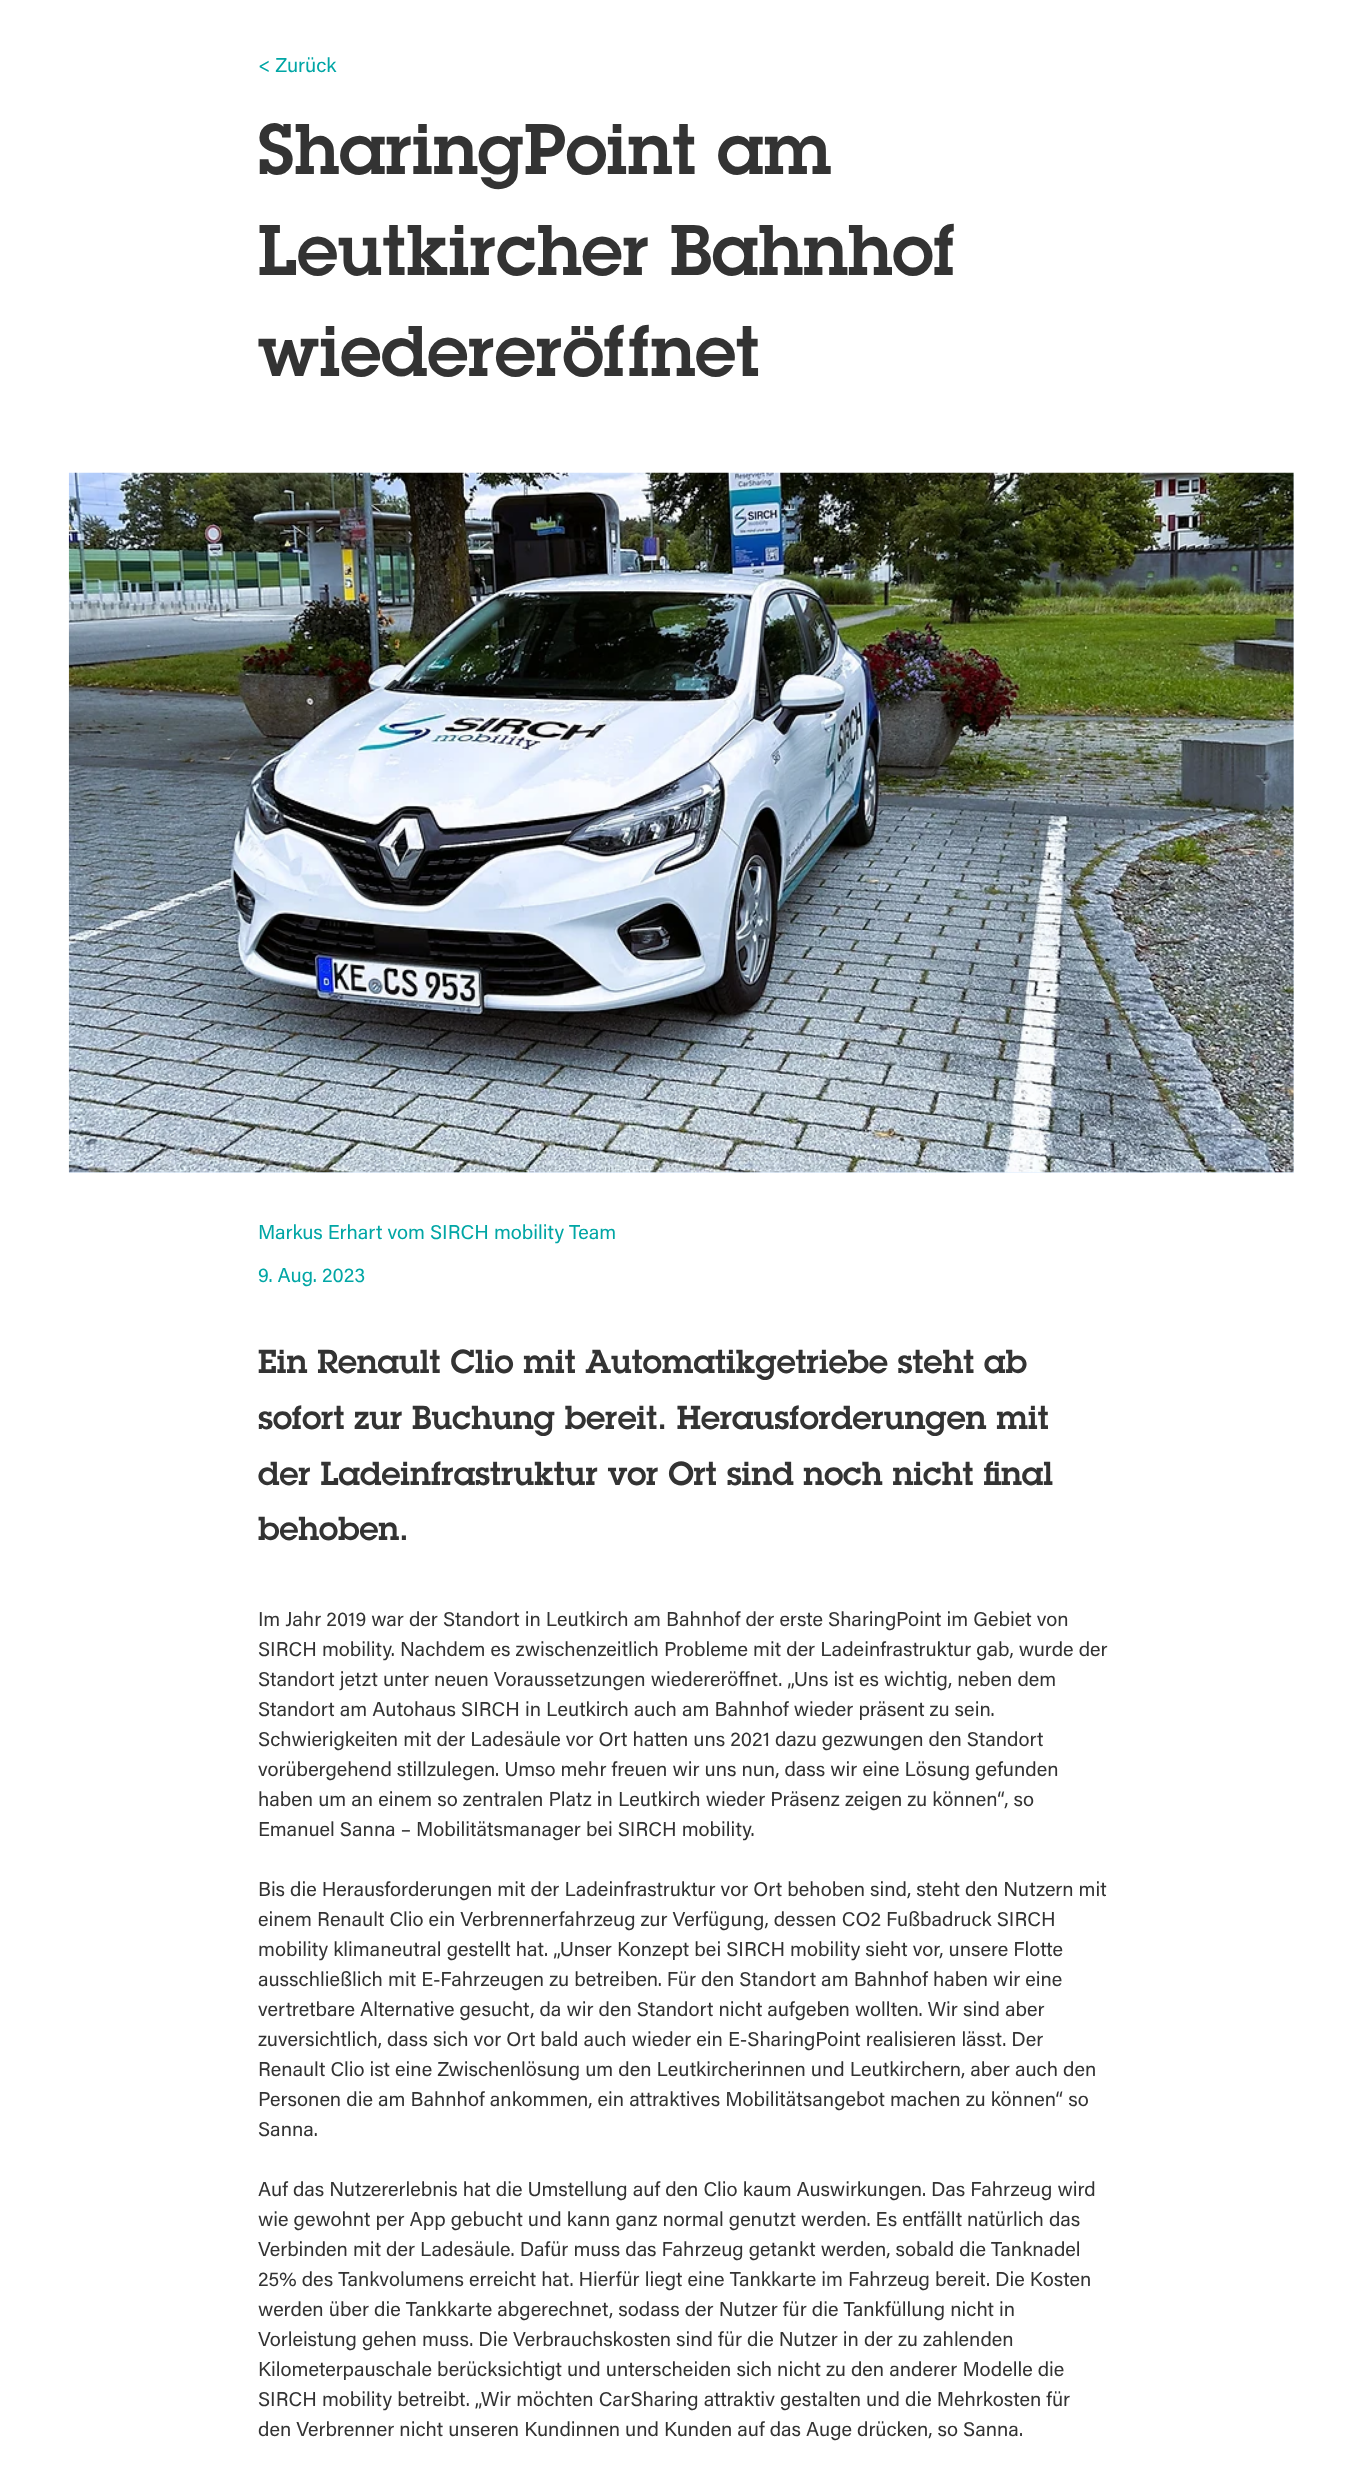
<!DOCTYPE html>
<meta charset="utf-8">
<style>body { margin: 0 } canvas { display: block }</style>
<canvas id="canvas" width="1362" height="2481"></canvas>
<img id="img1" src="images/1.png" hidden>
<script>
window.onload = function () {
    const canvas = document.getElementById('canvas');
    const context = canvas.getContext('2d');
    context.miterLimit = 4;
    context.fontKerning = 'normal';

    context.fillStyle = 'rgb(255, 255, 255)';
    context.fillRect(0, 0, 1362, 2481);
    context.fillStyle = 'rgb(229, 240, 254)';
    context.fillRect(69, 473, 1225, 700);
    context.drawImage(document.getElementById('img1'), 68, 472, 1226, 701);
    context.font = '20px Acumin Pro';
    context.fillStyle = 'rgb(0, 166, 165)';
    context.fillText('< Zurück', 258, 72);
    context.font = '600 70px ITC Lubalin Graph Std';
    context.fillStyle = 'rgb(51, 51, 51)';
    context.fillText('SharingPoint am', 258, 174);
    context.fillText('Leutkircher Bahnhof', 258, 275);
    context.fillText('wiedereröffnet', 258, 376);
    context.font = '20px Acumin Pro';
    context.fillStyle = 'rgb(0, 166, 165)';
    context.fillText('Markus Erhart vom SIRCH mobility Team', 258, 1239);
    context.fillText('9. Aug. 2023', 258, 1282);
    context.font = '600 32.5px ITC Lubalin Graph Std';
    context.fillStyle = 'rgb(51, 51, 51)';
    context.fillText('Ein Renault Clio mit Automatikgetriebe steht ab', 258, 1373);
    context.fillText('sofort zur Buchung bereit. Herausforderungen mit', 258, 1429);
    context.fillText('der Ladeinfrastruktur vor Ort sind noch nicht final', 258, 1485);
    context.fillText('behoben.', 258, 1540);
    context.font = '20px Acumin Pro';
    context.fillText('Im Jahr 2019 war der Standort in Leutkirch am Bahnhof der erste SharingPoint im Gebiet von', 258, 1626);
    context.fillText('SIRCH mobility. Nachdem es zwischenzeitlich Probleme mit der Ladeinfrastruktur gab, wurde der', 258, 1656);
    context.fillText('Standort jetzt unter neuen Voraussetzungen wiedereröffnet. „Uns ist es wichtig, neben dem', 258, 1686);
    context.fillText('Standort am Autohaus SIRCH in Leutkirch auch am Bahnhof wieder präsent zu sein.', 258, 1716);
    context.fillText('Schwierigkeiten mit der Ladesäule vor Ort hatten uns 2021 dazu gezwungen den Standort', 258, 1746);
    context.fillText('vorübergehend stillzulegen. Umso mehr freuen wir uns nun, dass wir eine Lösung gefunden', 258, 1776);
    context.fillText('haben um an einem so zentralen Platz in Leutkirch wieder Präsenz zeigen zu können“, so', 258, 1806);
    context.fillText('Emanuel Sanna – Mobilitätsmanager bei SIRCH mobility.', 258, 1836);
    context.fillText('Bis die Herausforderungen mit der Ladeinfrastruktur vor Ort behoben sind, steht den Nutzern mit', 258, 1896);
    context.fillText('einem Renault Clio ein Verbrennerfahrzeug zur Verfügung, dessen CO2 Fußbadruck SIRCH', 258, 1926);
    context.fillText('mobility klimaneutral gestellt hat. „Unser Konzept bei SIRCH mobility sieht vor, unsere Flotte', 258, 1956);
    context.fillText('ausschließlich mit E-Fahrzeugen zu betreiben. Für den Standort am Bahnhof haben wir eine', 258, 1986);
    context.fillText('vertretbare Alternative gesucht, da wir den Standort nicht aufgeben wollten. Wir sind aber', 258, 2016);
    context.fillText('zuversichtlich, dass sich vor Ort bald auch wieder ein E-SharingPoint realisieren lässt. Der', 258, 2046);
    context.fillText('Renault Clio ist eine Zwischenlösung um den Leutkircherinnen und Leutkirchern, aber auch den', 258, 2076);
    context.fillText('Personen die am Bahnhof ankommen, ein attraktives Mobilitätsangebot machen zu können“ so', 258, 2106);
    context.fillText('Sanna.', 258, 2136);
    context.fillText('Auf das Nutzererlebnis hat die Umstellung auf den Clio kaum Auswirkungen. Das Fahrzeug wird', 258, 2196);
    context.fillText('wie gewohnt per App gebucht und kann ganz normal genutzt werden. Es entfällt natürlich das', 258, 2226);
    context.fillText('Verbinden mit der Ladesäule. Dafür muss das Fahrzeug getankt werden, sobald die Tanknadel', 258, 2256);
    context.fillText('25% des Tankvolumens erreicht hat. Hierfür liegt eine Tankkarte im Fahrzeug bereit. Die Kosten', 258, 2286);
    context.fillText('werden über die Tankkarte abgerechnet, sodass der Nutzer für die Tankfüllung nicht in', 258, 2316);
    context.fillText('Vorleistung gehen muss. Die Verbrauchskosten sind für die Nutzer in der zu zahlenden', 258, 2346);
    context.fillText('Kilometerpauschale berücksichtigt und unterscheiden sich nicht zu den anderer Modelle die', 258, 2376);
    context.fillText('SIRCH mobility betreibt. „Wir möchten CarSharing attraktiv gestalten und die Mehrkosten für', 258, 2406);
    context.fillText('den Verbrenner nicht unseren Kundinnen und Kunden auf das Auge drücken, so Sanna.', 258, 2436);
};
</script>
